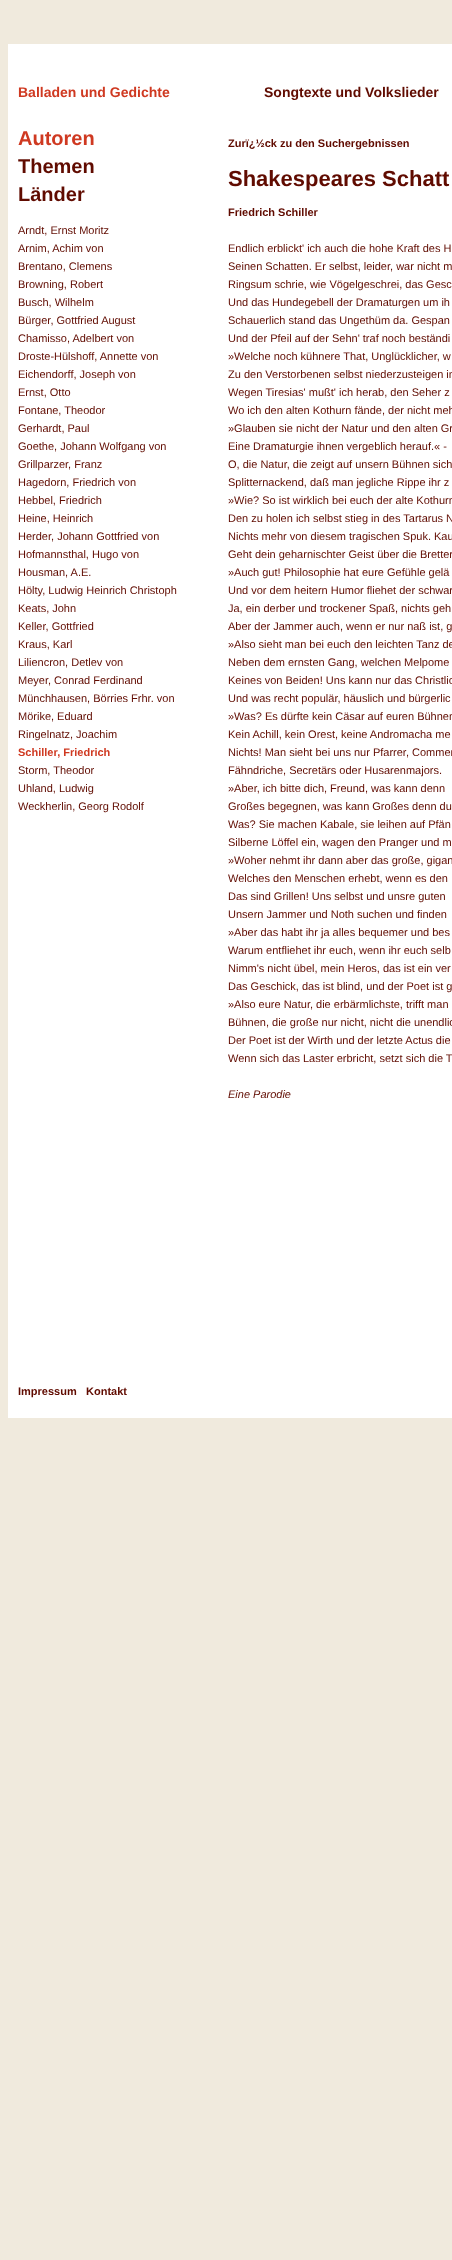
<!DOCTYPE html>
<meta charset="utf-8">
<style>body { margin: 0 } canvas { display: block }</style>
<canvas id="canvas" width="452" height="2260"></canvas>
<script>
window.onload = function () {
    const canvas = document.getElementById('canvas');
    const context = canvas.getContext('2d');
    context.miterLimit = 4;
    context.fontKerning = 'normal';

    context.fillStyle = 'rgb(240, 234, 221)';
    context.fillRect(0, 0, 452, 2260);
    context.fillStyle = 'rgb(255, 255, 255)';
    context.fillRect(8, 44, 444, 1374);
    context.font = 'bold 14px Liberation Sans';
    context.fillStyle = 'rgb(207, 57, 33)';
    context.fillText('Balladen und Gedichte', 18, 97);
    context.fillStyle = 'rgb(96, 11, 0)';
    context.fillText('Songtexte und Volkslieder', 264, 97);
    context.font = 'bold 20px Liberation Sans';
    context.fillStyle = 'rgb(207, 57, 33)';
    context.fillText('Autoren', 18, 145);
    context.fillStyle = 'rgb(96, 11, 0)';
    context.fillText('Themen', 18, 173);
    context.fillText('Länder', 18, 201);
    context.font = '11px Liberation Sans';
    context.fillText('Arndt, Ernst Moritz', 18, 234);
    context.fillText('Arnim, Achim von', 18, 252);
    context.fillText('Brentano, Clemens', 18, 270);
    context.fillText('Browning, Robert', 18, 288);
    context.fillText('Busch, Wilhelm', 18, 306);
    context.fillText('Bürger, Gottfried August', 18, 324);
    context.fillText('Chamisso, Adelbert von', 18, 342);
    context.fillText('Droste-Hülshoff, Annette von', 18, 360);
    context.fillText('Eichendorff, Joseph von', 18, 378);
    context.fillText('Ernst, Otto', 18, 396);
    context.fillText('Fontane, Theodor', 18, 414);
    context.fillText('Gerhardt, Paul', 18, 432);
    context.fillText('Goethe, Johann Wolfgang von', 18, 450);
    context.fillText('Grillparzer, Franz', 18, 468);
    context.fillText('Hagedorn, Friedrich von', 18, 486);
    context.fillText('Hebbel, Friedrich', 18, 504);
    context.fillText('Heine, Heinrich', 18, 522);
    context.fillText('Herder, Johann Gottfried von', 18, 540);
    context.fillText('Hofmannsthal, Hugo von', 18, 558);
    context.fillText('Housman, A.E.', 18, 576);
    context.fillText('Hölty, Ludwig Heinrich Christoph', 18, 594);
    context.fillText('Keats, John', 18, 612);
    context.fillText('Keller, Gottfried', 18, 630);
    context.fillText('Kraus, Karl', 18, 648);
    context.fillText('Liliencron, Detlev von', 18, 666);
    context.fillText('Meyer, Conrad Ferdinand', 18, 684);
    context.fillText('Münchhausen, Börries Frhr. von', 18, 702);
    context.fillText('Mörike, Eduard', 18, 720);
    context.fillText('Ringelnatz, Joachim', 18, 738);
    context.font = 'bold 11px Liberation Sans';
    context.fillStyle = 'rgb(207, 57, 33)';
    context.fillText('Schiller, Friedrich', 18, 756);
    context.font = '11px Liberation Sans';
    context.fillStyle = 'rgb(96, 11, 0)';
    context.fillText('Storm, Theodor', 18, 774);
    context.fillText('Uhland, Ludwig', 18, 792);
    context.fillText('Weckherlin, Georg Rodolf', 18, 810);
    context.font = 'bold 11px Liberation Sans';
    context.fillText('Zurï¿½ck zu den Suchergebnissen', 228, 147);
    context.font = 'bold 22px Liberation Sans';
    context.fillText('Shakespeares Schatt', 228, 186);
    context.font = 'bold 11px Liberation Sans';
    context.fillText('Friedrich Schiller', 228, 216);
    context.font = '11px Liberation Sans';
    context.fillText('Endlich erblickt\' ich auch die hohe Kraft des H', 228, 252);
    context.fillText('Seinen Schatten. Er selbst, leider, war nicht m', 228, 270);
    context.fillText('Ringsum schrie, wie Vögelgeschrei, das Gesc', 228, 288);
    context.fillText('Und das Hundegebell der Dramaturgen um ih', 228, 306);
    context.fillText('Schauerlich stand das Ungethüm da. Gespan', 228, 324);
    context.fillText('Und der Pfeil auf der Sehn\' traf noch beständi', 228, 342);
    context.fillText('»Welche noch kühnere That, Unglücklicher, w', 228, 360);
    context.fillText('Zu den Verstorbenen selbst niederzusteigen in', 228, 378);
    context.fillText('Wegen Tiresias\' mußt\' ich herab, den Seher z', 228, 396);
    context.fillText('Wo ich den alten Kothurn fände, der nicht meh', 228, 414);
    context.fillText('»Glauben sie nicht der Natur und den alten Gr', 228, 432);
    context.fillText('Eine Dramaturgie ihnen vergeblich herauf.« -', 228, 450);
    context.fillText('O, die Natur, die zeigt auf unsern Bühnen sich', 228, 468);
    context.fillText('Splitternackend, daß man jegliche Rippe ihr z', 228, 486);
    context.fillText('»Wie? So ist wirklich bei euch der alte Kothurn', 228, 504);
    context.fillText('Den zu holen ich selbst stieg in des Tartarus N', 228, 522);
    context.fillText('Nichts mehr von diesem tragischen Spuk. Kau', 228, 540);
    context.fillText('Geht dein geharnischter Geist über die Bretter', 228, 558);
    context.fillText('»Auch gut! Philosophie hat eure Gefühle gelä', 228, 576);
    context.fillText('Und vor dem heitern Humor fliehet der schwar', 228, 594);
    context.fillText('Ja, ein derber und trockener Spaß, nichts geh', 228, 612);
    context.fillText('Aber der Jammer auch, wenn er nur naß ist, g', 228, 630);
    context.fillText('»Also sieht man bei euch den leichten Tanz de', 228, 648);
    context.fillText('Neben dem ernsten Gang, welchen Melpome', 228, 666);
    context.fillText('Keines von Beiden! Uns kann nur das Christlic', 228, 684);
    context.fillText('Und was recht populär, häuslich und bürgerlic', 228, 702);
    context.fillText('»Was? Es dürfte kein Cäsar auf euren Bühnen', 228, 720);
    context.fillText('Kein Achill, kein Orest, keine Andromacha me', 228, 738);
    context.fillText('Nichts! Man sieht bei uns nur Pfarrer, Commer', 228, 756);
    context.fillText('Fähndriche, Secretärs oder Husarenmajors.', 228, 774);
    context.fillText('»Aber, ich bitte dich, Freund, was kann denn', 228, 792);
    context.fillText('Großes begegnen, was kann Großes denn du', 228, 810);
    context.fillText('Was? Sie machen Kabale, sie leihen auf Pfän', 228, 828);
    context.fillText('Silberne Löffel ein, wagen den Pranger und m', 228, 846);
    context.fillText('»Woher nehmt ihr dann aber das große, gigan', 228, 864);
    context.fillText('Welches den Menschen erhebt, wenn es den', 228, 882);
    context.fillText('Das sind Grillen! Uns selbst und unsre guten', 228, 900);
    context.fillText('Unsern Jammer und Noth suchen und finden', 228, 918);
    context.fillText('»Aber das habt ihr ja alles bequemer und bes', 228, 936);
    context.fillText('Warum entfliehet ihr euch, wenn ihr euch selb', 228, 954);
    context.fillText('Nimm\'s nicht übel, mein Heros, das ist ein ver', 228, 972);
    context.fillText('Das Geschick, das ist blind, und der Poet ist g', 228, 990);
    context.fillText('»Also eure Natur, die erbärmlichste, trifft man', 228, 1008);
    context.fillText('Bühnen, die große nur nicht, nicht die unendlic', 228, 1026);
    context.fillText('Der Poet ist der Wirth und der letzte Actus die', 228, 1044);
    context.fillText('Wenn sich das Laster erbricht, setzt sich die T', 228, 1062);
    context.font = 'italic 11px Liberation Sans';
    context.fillText('Eine Parodie', 228, 1098);
    context.font = 'bold 11px Liberation Sans';
    context.fillText('Impressum', 18, 1395);
    context.fillText('Kontakt', 86, 1395);
};
</script>
